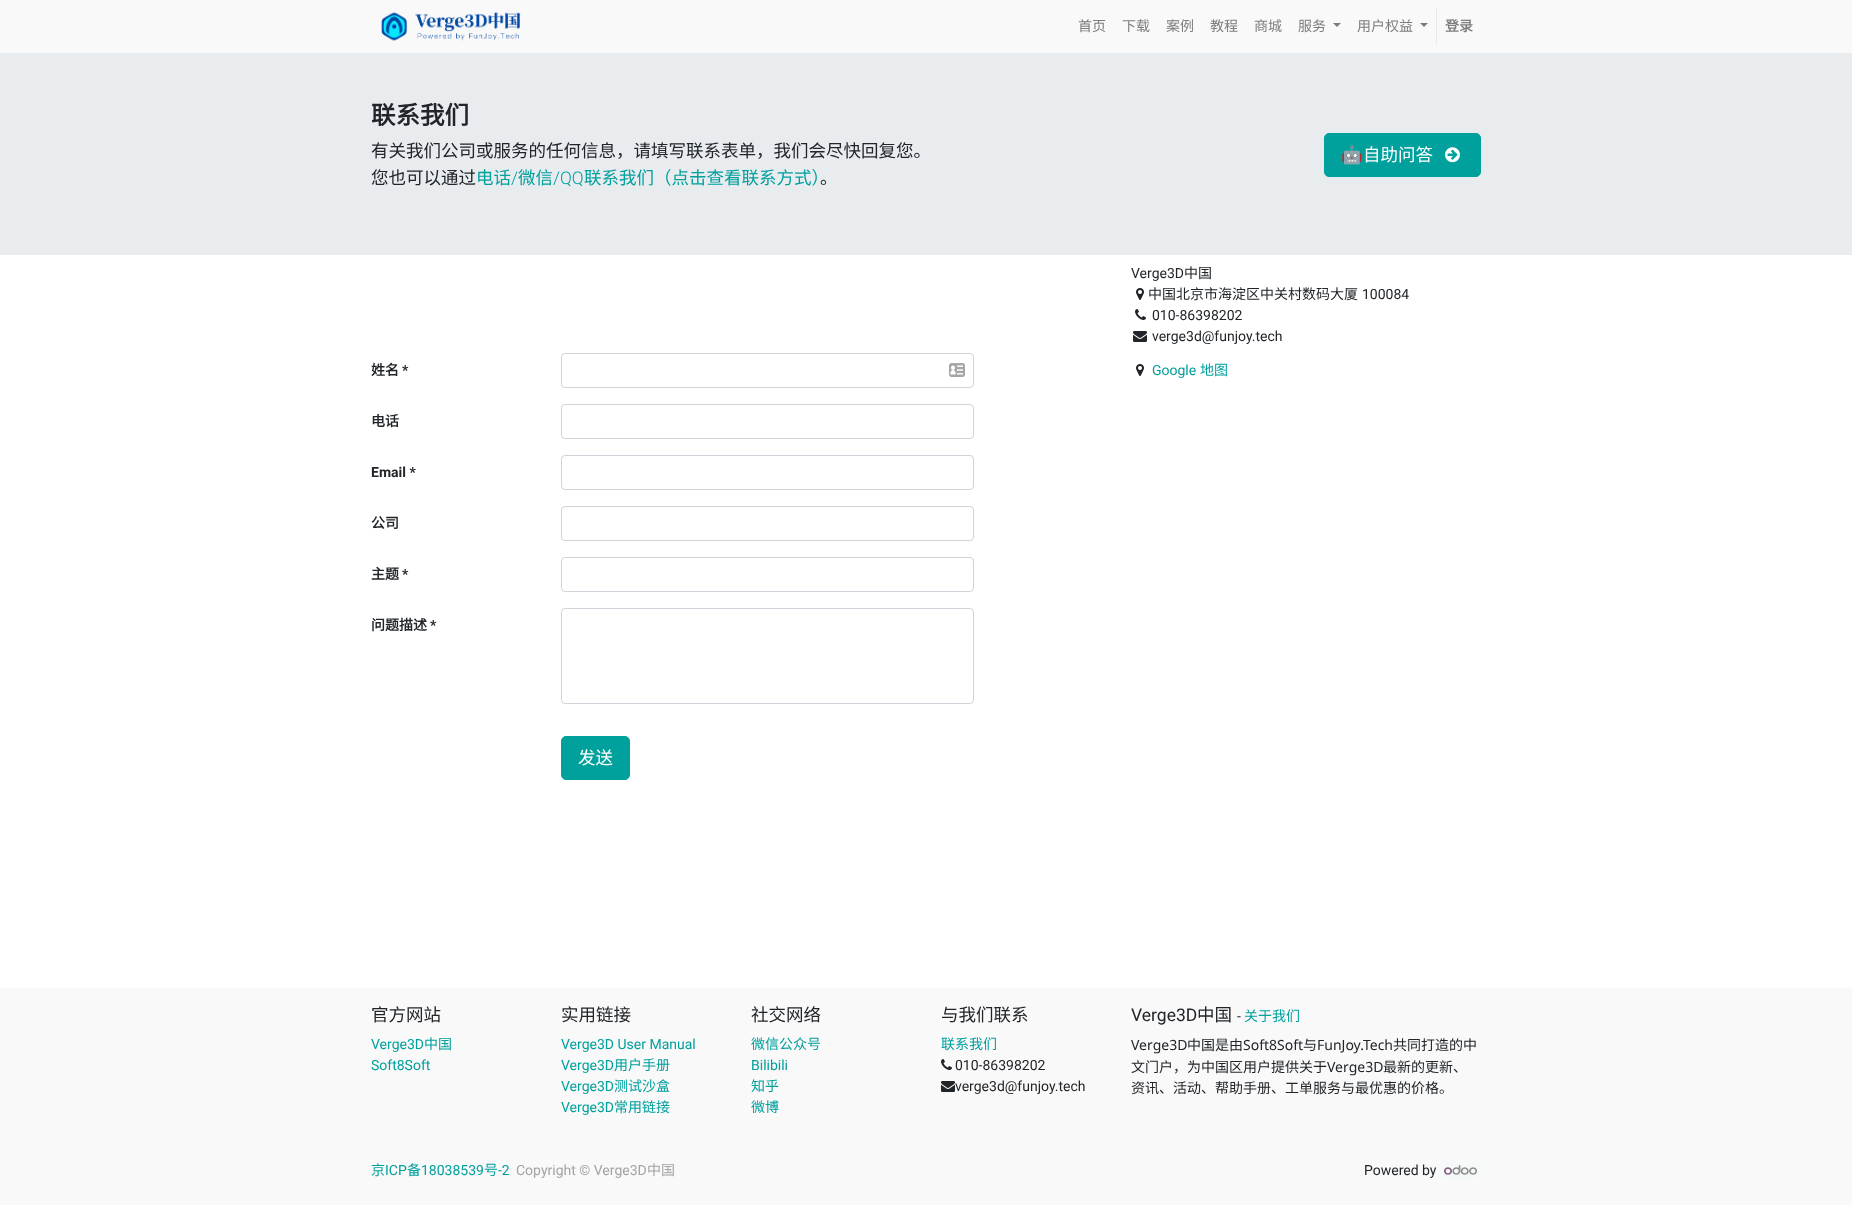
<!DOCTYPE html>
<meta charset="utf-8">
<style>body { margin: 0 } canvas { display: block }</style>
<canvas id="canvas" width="1852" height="1205"></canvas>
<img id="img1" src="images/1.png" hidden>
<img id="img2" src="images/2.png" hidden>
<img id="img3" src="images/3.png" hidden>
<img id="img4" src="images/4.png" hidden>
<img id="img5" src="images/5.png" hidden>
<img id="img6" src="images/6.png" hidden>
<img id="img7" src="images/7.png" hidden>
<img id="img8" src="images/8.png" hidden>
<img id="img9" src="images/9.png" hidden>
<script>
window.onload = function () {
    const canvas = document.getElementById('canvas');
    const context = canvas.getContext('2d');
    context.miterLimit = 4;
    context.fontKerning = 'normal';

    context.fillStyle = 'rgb(255, 255, 255)';
    context.fillRect(0, 0, 1852, 1205);
    context.fillStyle = 'rgb(249, 249, 249)';
    context.fillRect(0, 0, 1852, 53);
    context.drawImage(document.getElementById('img1'), 381, 12, 140, 29);
    context.fillStyle = 'rgb(125, 125, 125)';
    context.beginPath();
    context.moveTo(1333, 23);
    context.lineTo(1341, 23);
    context.lineTo(1337, 27);
    context.closePath();
    context.fill();
    context.beginPath();
    context.moveTo(1420, 23);
    context.lineTo(1428, 23);
    context.lineTo(1424, 27);
    context.closePath();
    context.fill();
    context.fillStyle = 'rgb(233, 236, 239)';
    context.fillRect(1436, 8, 1, 37);
    context.fillRect(0, 53, 1852, 202);
    context.fillStyle = 'rgb(0, 160, 157)';
    context.beginPath();
    context.roundRect(1324.5, 133.5, 156, 43, 4.5);
    context.fill();
    context.strokeStyle = 'rgb(0, 160, 157)';
    context.stroke();
    context.drawImage(document.getElementById('img2'), 1445, 147, 15, 16);
    context.drawImage(document.getElementById('img3'), 1136, 288, 8, 12);
    context.drawImage(document.getElementById('img4'), 1135, 309, 11, 11);
    context.drawImage(document.getElementById('img5'), 1133, 331, 14, 11);
    context.drawImage(document.getElementById('img3'), 1136, 364, 8, 12);
    context.drawImage(document.getElementById('img6'), 949, 363, 16, 14);
    context.beginPath();
    context.roundRect(561.5, 353.5, 412, 34, 3.5);
    context.strokeStyle = 'rgb(206, 212, 218)';
    context.stroke();
    context.beginPath();
    context.roundRect(561.5, 404.5, 412, 34, 3.5);
    context.stroke();
    context.beginPath();
    context.roundRect(561.5, 455.5, 412, 34, 3.5);
    context.stroke();
    context.beginPath();
    context.roundRect(561.5, 506.5, 412, 34, 3.5);
    context.stroke();
    context.beginPath();
    context.roundRect(561.5, 557.5, 412, 34, 3.5);
    context.stroke();
    context.beginPath();
    context.roundRect(561.5, 608.5, 412, 95, 3.5);
    context.stroke();
    context.beginPath();
    context.roundRect(561.5, 736.5, 68, 43, 4.5);
    context.fill();
    context.strokeStyle = 'rgb(0, 160, 157)';
    context.stroke();
    context.fillStyle = 'rgb(249, 249, 249)';
    context.fillRect(0, 988, 1852, 217);
    context.drawImage(document.getElementById('img7'), 941, 1059, 11, 11);
    context.drawImage(document.getElementById('img8'), 941, 1081, 14, 11);
    context.fillStyle = 'rgb(246, 249, 249)';
    context.beginPath();
    context.roundRect(1440, 1162, 41, 18, 4);
    context.fill();
    context.drawImage(document.getElementById('img9'), 1444, 1165, 33, 10);
    context.font = '14px Noto Sans CJK SC';
    context.fillStyle = 'rgb(125, 125, 125)';
    context.fillText('首页', 1078, 31);
    context.fillText('下载', 1122, 31);
    context.fillText('案例', 1166, 31);
    context.fillText('教程', 1210, 31);
    context.fillText('商城', 1254, 31);
    context.fillText('服务', 1298, 31);
    context.fillText('用户权益', 1357, 31);
    context.font = 'bold 14px Noto Sans CJK SC';
    context.fillText('登录', 1445, 31);
    context.font = 'bold 24.5px Noto Sans CJK SC';
    context.fillStyle = 'rgb(33, 37, 41)';
    context.fillText('联系我们', 371, 124);
    context.font = '17.5px Noto Sans CJK SC';
    context.fillText('有关我们公司或服务的任何信息，请填写联系表单，我们会尽快回复您。', 371, 157);
    context.fillText('您也可以通过', 371, 184);
    context.fillStyle = 'rgb(0, 160, 157)';
    context.fillText('电话', 476, 184);
    context.font = '300 17.5px Roboto';
    context.fillText('/', 511, 184);
    context.font = '17.5px Noto Sans CJK SC';
    context.fillText('微信', 518, 184);
    context.font = '300 17.5px Roboto';
    context.fillText('/QQ', 553, 184);
    context.font = '17.5px Noto Sans CJK SC';
    context.fillText('联系我们（点击查看联系方式）', 584, 184);
    context.fillStyle = 'rgb(33, 37, 41)';
    context.fillText('。', 820, 184);
    context.font = '17.5px Noto Color Emoji';
    context.fillStyle = 'rgb(255, 255, 255)';
    context.fillText('🤖', 1341, 161);
    context.font = '17.5px Noto Sans CJK SC';
    context.fillText('自助问答', 1363, 161);
    context.font = '14px Roboto';
    context.fillStyle = 'rgb(33, 37, 41)';
    context.fillText('Verge3D', 1131, 278);
    context.font = '14px Noto Sans CJK SC';
    context.fillText('中国', 1184, 278);
    context.fillText('中国北京市海淀区中关村数码大厦', 1148, 299);
    context.font = '14px Roboto';
    context.fillText('100084', 1362, 299);
    context.fillText('010-86398202', 1152, 320);
    context.fillText('verge3d@funjoy.tech', 1152, 341);
    context.fillStyle = 'rgb(0, 160, 157)';
    context.fillText('Google', 1152, 375);
    context.font = '14px Noto Sans CJK SC';
    context.fillText('地图', 1200, 375);
    context.font = 'bold 14px Noto Sans CJK SC';
    context.fillStyle = 'rgb(33, 37, 41)';
    context.fillText('姓名', 371, 375);
    context.font = 'bold 14px Roboto';
    context.fillText('*', 402, 375);
    context.font = 'bold 14px Noto Sans CJK SC';
    context.fillText('电话', 371, 426);
    context.font = 'bold 14px Roboto';
    context.fillText('Email *', 371, 477);
    context.font = 'bold 14px Noto Sans CJK SC';
    context.fillText('公司', 371, 528);
    context.fillText('主题', 371, 579);
    context.font = 'bold 14px Roboto';
    context.fillText('*', 402, 579);
    context.font = 'bold 14px Noto Sans CJK SC';
    context.fillText('问题描述', 371, 630);
    context.font = 'bold 14px Roboto';
    context.fillText('*', 430, 630);
    context.font = '17.5px Noto Sans CJK SC';
    context.fillStyle = 'rgb(255, 255, 255)';
    context.fillText('发送', 578, 764);
    context.fillStyle = 'rgb(33, 37, 41)';
    context.fillText('官方网站', 371, 1021);
    context.font = '14px Roboto';
    context.fillStyle = 'rgb(0, 160, 157)';
    context.fillText('Verge3D', 371, 1049);
    context.font = '14px Noto Sans CJK SC';
    context.fillText('中国', 424, 1049);
    context.font = '14px Roboto';
    context.fillText('Soft8Soft', 371, 1070);
    context.font = '17.5px Noto Sans CJK SC';
    context.fillStyle = 'rgb(33, 37, 41)';
    context.fillText('实用链接', 561, 1021);
    context.font = '14px Roboto';
    context.fillStyle = 'rgb(0, 160, 157)';
    context.fillText('Verge3D User Manual', 561, 1049);
    context.fillText('Verge3D', 561, 1070);
    context.font = '14px Noto Sans CJK SC';
    context.fillText('用户手册', 614, 1070);
    context.font = '14px Roboto';
    context.fillText('Verge3D', 561, 1091);
    context.font = '14px Noto Sans CJK SC';
    context.fillText('测试沙盒', 614, 1091);
    context.font = '14px Roboto';
    context.fillText('Verge3D', 561, 1112);
    context.font = '14px Noto Sans CJK SC';
    context.fillText('常用链接', 614, 1112);
    context.font = '17.5px Noto Sans CJK SC';
    context.fillStyle = 'rgb(33, 37, 41)';
    context.fillText('社交网络', 751, 1021);
    context.font = '14px Noto Sans CJK SC';
    context.fillStyle = 'rgb(0, 160, 157)';
    context.fillText('微信公众号', 751, 1049);
    context.font = '14px Roboto';
    context.fillText('Bilibili', 751, 1070);
    context.font = '14px Noto Sans CJK SC';
    context.fillText('知乎', 751, 1091);
    context.fillText('微博', 751, 1112);
    context.font = '17.5px Noto Sans CJK SC';
    context.fillStyle = 'rgb(33, 37, 41)';
    context.fillText('与我们联系', 941, 1021);
    context.font = '14px Noto Sans CJK SC';
    context.fillStyle = 'rgb(0, 160, 157)';
    context.fillText('联系我们', 941, 1049);
    context.font = '14px Roboto';
    context.fillStyle = 'rgb(33, 37, 41)';
    context.fillText('010-86398202', 955, 1070);
    context.fillText('verge3d@funjoy.tech', 955, 1091);
    context.font = '17.5px Roboto';
    context.fillText('Verge3D', 1131, 1021);
    context.font = '17.5px Noto Sans CJK SC';
    context.fillText('中国', 1197, 1021);
    context.font = '14px Roboto';
    context.fillText('-', 1237, 1021);
    context.font = '14px Noto Sans CJK SC';
    context.fillStyle = 'rgb(0, 160, 157)';
    context.fillText('关于我们', 1244, 1021);
    context.font = '14px Noto Sans';
    context.fillStyle = 'rgb(33, 37, 41)';
    context.fillText('Verge3D', 1131, 1050);
    context.font = '14px Noto Sans CJK SC';
    context.fillText('中国是由', 1187, 1050);
    context.font = '14px Noto Sans';
    context.fillText('Soft8Soft', 1243, 1050);
    context.font = '14px Noto Sans CJK SC';
    context.fillText('与', 1303, 1050);
    context.font = '14px Noto Sans';
    context.fillText('FunJoy.Tech', 1317, 1050);
    context.font = '14px Noto Sans CJK SC';
    context.fillText('共同打造的中', 1393, 1050);
    context.fillText('文门户，为中国区用户提供关于', 1131, 1072);
    context.font = '14px Noto Sans';
    context.fillText('Verge3D', 1327, 1072);
    context.font = '14px Noto Sans CJK SC';
    context.fillText('最新的更新、', 1383, 1072);
    context.fillText('资讯、活动、帮助手册、工单服务与最优惠的价格。', 1131, 1093);
    context.fillStyle = 'rgb(0, 160, 157)';
    context.fillText('京', 371, 1175);
    context.font = '14px Roboto';
    context.fillText('ICP', 385, 1175);
    context.font = '14px Noto Sans CJK SC';
    context.fillText('备', 407, 1175);
    context.font = '14px Roboto';
    context.fillText('18038539', 421, 1175);
    context.font = '14px Noto Sans CJK SC';
    context.fillText('号', 484, 1175);
    context.font = '14px Roboto';
    context.fillText('-2', 498, 1175);
    context.fillStyle = 'rgb(163, 164, 166)';
    context.fillText('Copyright © Verge3D', 516, 1175);
    context.font = '14px Noto Sans CJK SC';
    context.fillText('中国', 647, 1175);
    context.font = '14px Roboto';
    context.fillStyle = 'rgb(33, 37, 41)';
    context.fillText('Powered by', 1364, 1175);
};
</script>
